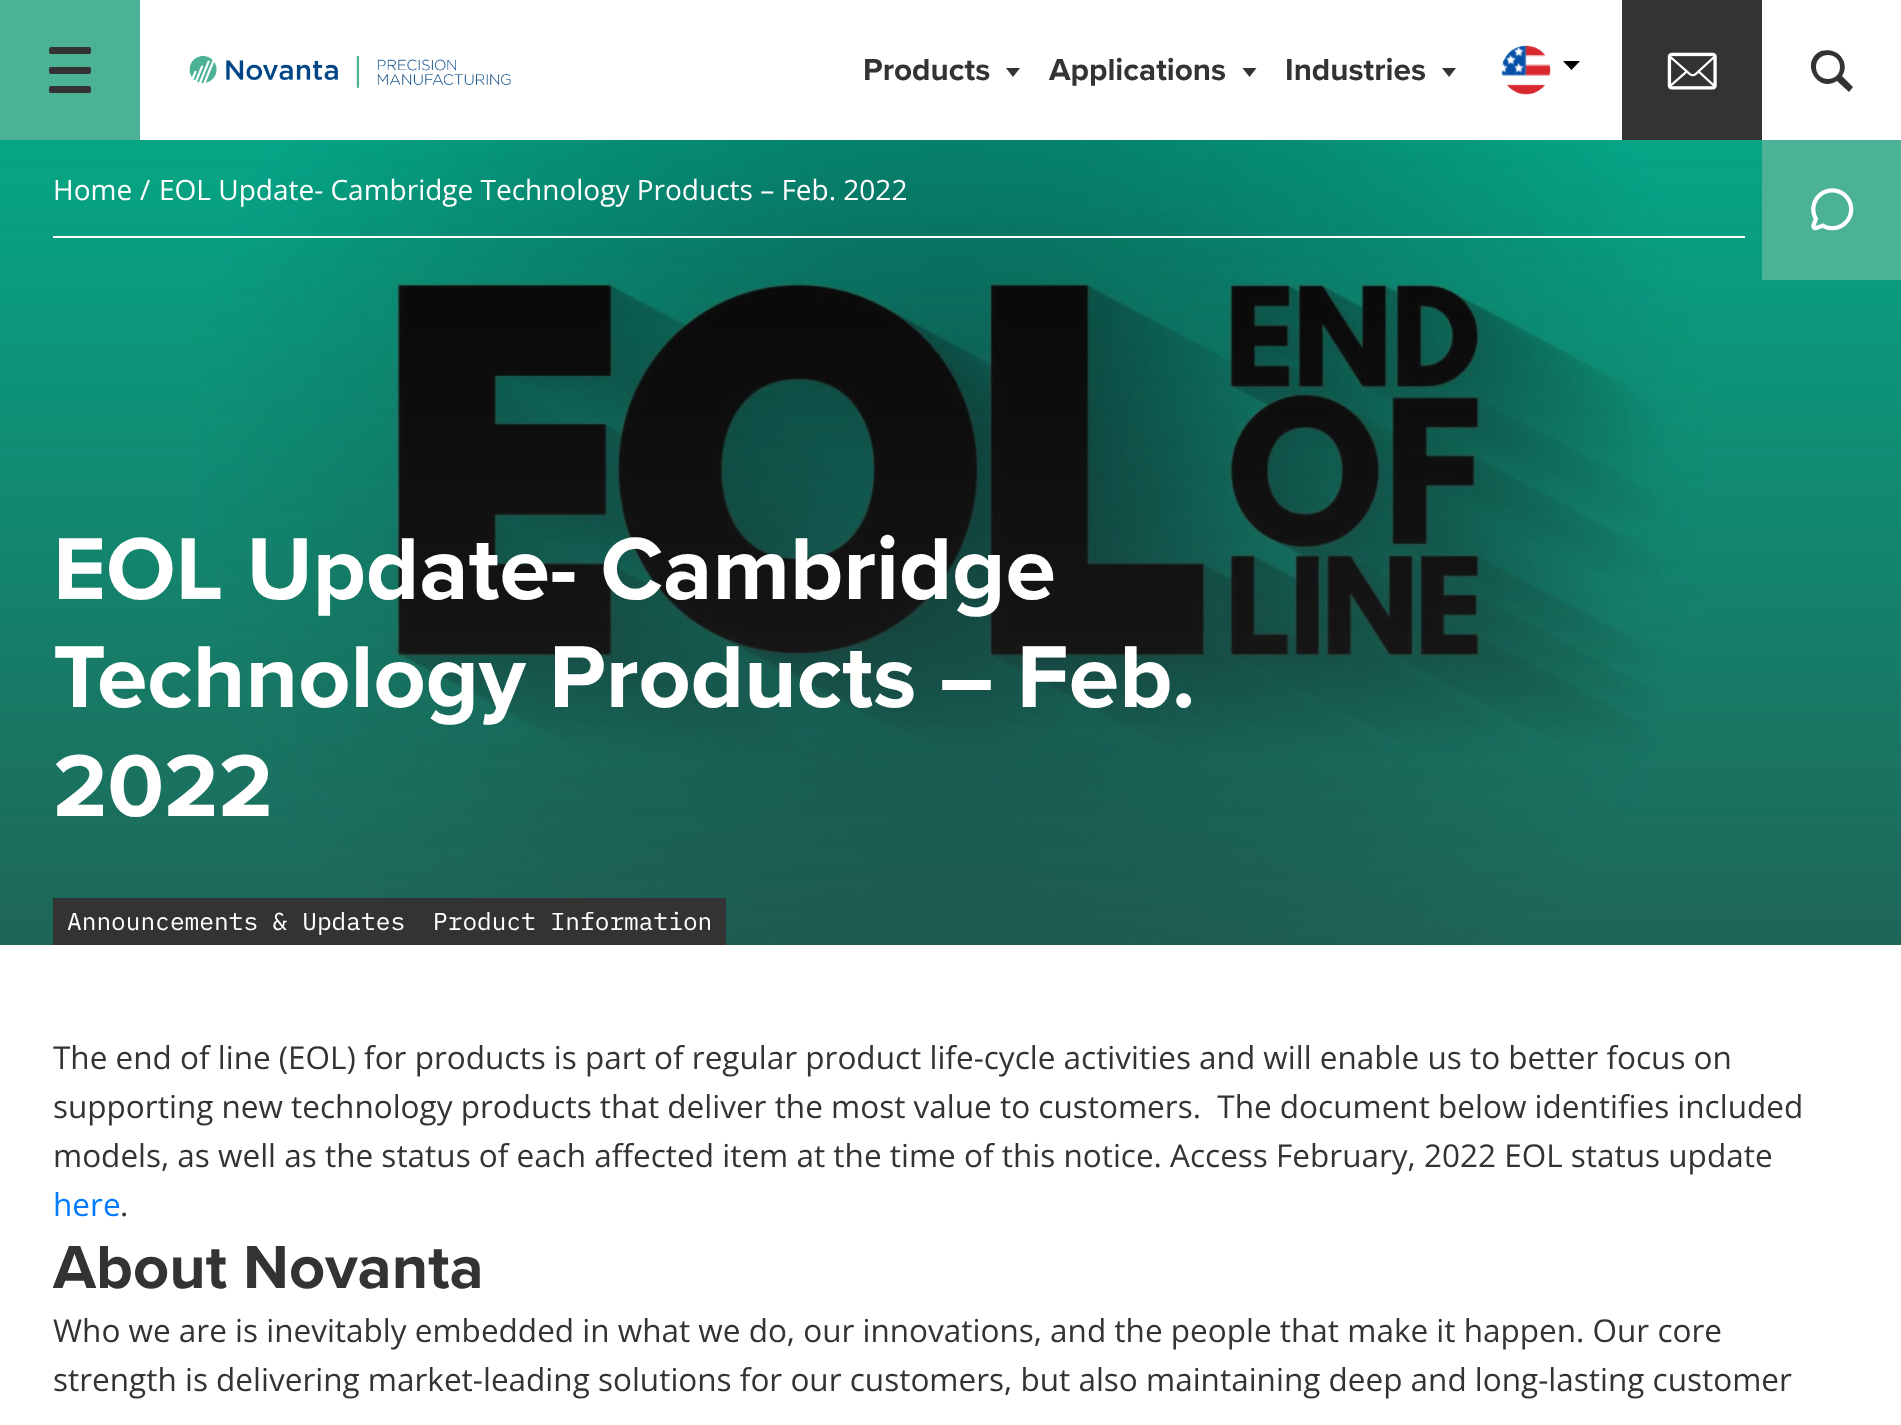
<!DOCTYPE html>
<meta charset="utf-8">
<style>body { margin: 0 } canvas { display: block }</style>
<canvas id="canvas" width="1901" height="1425"></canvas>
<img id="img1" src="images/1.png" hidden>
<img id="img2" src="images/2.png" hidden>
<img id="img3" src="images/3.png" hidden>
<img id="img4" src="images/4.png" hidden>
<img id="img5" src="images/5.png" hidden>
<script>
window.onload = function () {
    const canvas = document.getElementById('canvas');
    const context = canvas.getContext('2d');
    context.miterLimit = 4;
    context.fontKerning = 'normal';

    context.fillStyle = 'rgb(255, 255, 255)';
    context.fillRect(0, 0, 1901, 1425);
    context.fillStyle = 'rgb(75, 178, 149)';
    context.fillRect(0, 0, 140, 140);
    context.fillStyle = 'rgb(51, 51, 51)';
    context.beginPath();
    context.roundRect(49, 47, 42, 7, 2);
    context.fill();
    context.beginPath();
    context.roundRect(49, 67, 42, 7, 2);
    context.fill();
    context.beginPath();
    context.roundRect(49, 86, 42, 7, 2);
    context.fill();
    context.drawImage(document.getElementById('img1'), 189, 55, 322, 33);
    context.beginPath();
    context.moveTo(1006, 68);
    context.lineTo(1020, 68);
    context.lineTo(1013, 77);
    context.closePath();
    context.fill();
    context.beginPath();
    context.moveTo(1242.5, 68);
    context.lineTo(1256.5, 68);
    context.lineTo(1249.5, 77);
    context.closePath();
    context.fill();
    context.beginPath();
    context.moveTo(1442, 68);
    context.lineTo(1456, 68);
    context.lineTo(1449, 77);
    context.closePath();
    context.fill();
    context.drawImage(document.getElementById('img2'), 1501, 45, 50, 50);
    context.fillStyle = 'rgb(0, 0, 0)';
    context.beginPath();
    context.moveTo(1563, 61);
    context.lineTo(1580, 61);
    context.lineTo(1571.5, 70);
    context.closePath();
    context.fill();
    context.fillStyle = 'rgb(51, 51, 51)';
    context.fillRect(1622, 0, 140, 140);
    context.drawImage(document.getElementById('img3'), 1667, 52, 50, 38);
    context.beginPath();
    context.moveTo(1853, 87);
    context.lineTo(1842, 76);
    context.bezierCurveTo(1848, 68, 1844, 56, 1835, 52);
    context.bezierCurveTo(1831, 50, 1826, 50, 1821, 51);
    context.bezierCurveTo(1799, 61, 1817, 94, 1837, 81);
    context.lineTo(1849, 92);
    context.closePath();
    context.moveTo(1816, 67);
    context.bezierCurveTo(1816, 51, 1840, 51, 1840, 67);
    context.bezierCurveTo(1840, 83, 1816, 83, 1816, 67);
    context.closePath();
    context.fill();
    context.drawImage(document.getElementById('img4'), 0, 140, 1901, 805);
    context.fillStyle = 'rgb(255, 255, 255)';
    context.fillRect(53, 236, 1692, 2);
    context.fillStyle = 'rgb(51, 51, 51)';
    context.fillRect(53, 898, 673, 47);
    context.fillStyle = 'rgb(75, 178, 149)';
    context.fillRect(1762, 140, 139, 140);
    context.drawImage(document.getElementById('img5'), 1811, 188, 43, 43);
    context.font = 'bold 31.5px Proxima Nova';
    context.fillStyle = 'rgb(51, 51, 51)';
    context.fillText('Products', 863, 80);
    context.fillText('Applications', 1049, 80);
    context.fillText('Industries', 1285, 80);
    context.font = '28px Open Sans';
    context.fillStyle = 'rgb(255, 255, 255)';
    context.fillText('Home', 53, 200);
    context.fillText('/', 140, 200);
    context.fillText('EOL Update- Cambridge Technology Products – Feb. 2022', 159, 200);
    context.font = 'bold 91px Proxima Nova';
    context.fillText('EOL Update- Cambridge', 53, 599);
    context.fillText('Technology Products – Feb.', 53, 707);
    context.fillText('2022', 53, 816);
    context.font = '24.5px IBM Plex Mono';
    context.fillText('Announcements & Updates', 67, 930);
    context.fillText('Product Information', 433, 930);
    context.font = '31.5px Open Sans';
    context.fillStyle = 'rgb(51, 51, 51)';
    context.fillText('The end of line (EOL) for products is part of regular product life-cycle activities and will enable us to better focus on', 53, 1069);
    context.fillText('supporting new technology products that deliver the most value to customers.  The document below identifies included', 53, 1118);
    context.fillText('models, as well as the status of each affected item at the time of this notice. Access February, 2022 EOL status update', 53, 1167);
    context.fillStyle = 'rgb(0, 123, 255)';
    context.fillText('here', 53, 1216);
    context.fillStyle = 'rgb(51, 51, 51)';
    context.fillText('.', 120, 1216);
    context.font = 'bold 63px Proxima Nova';
    context.fillText('About Novanta', 53, 1288);
    context.font = '31.5px Open Sans';
    context.fillText('Who we are is inevitably embedded in what we do, our innovations, and the people that make it happen. Our core', 53, 1342);
    context.fillText('strength is delivering market-leading solutions for our customers, but also maintaining deep and long-lasting customer', 53, 1391);
};
</script>
